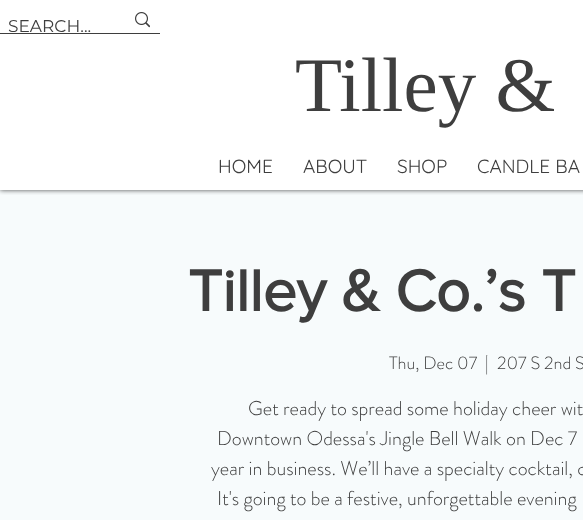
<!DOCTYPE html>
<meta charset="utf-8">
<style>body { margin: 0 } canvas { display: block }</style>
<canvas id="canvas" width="583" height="520"></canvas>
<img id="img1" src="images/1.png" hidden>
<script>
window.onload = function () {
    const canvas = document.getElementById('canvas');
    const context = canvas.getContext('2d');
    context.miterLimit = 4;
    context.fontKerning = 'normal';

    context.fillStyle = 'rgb(255, 255, 255)';
    context.fillRect(0, 0, 583, 520);
    context.fillStyle = 'rgb(247, 251, 252)';
    context.fillRect(0, 190, 583, 330);
    context.save();
    context.beginPath();
    context.rect(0, 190, 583, 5);
    context.clip();
    context.fillStyle = 'rgba(0, 0, 0, 0.7)';
    context.filter = 'blur(2.5px)';
    context.beginPath();
    context.rect(0, 0, 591, 190);
    context.fill();
    context.filter = 'none';
    context.restore();
    context.fillStyle = 'rgb(62, 62, 62)';
    context.fillRect(0, 33, 160, 1);
    context.drawImage(document.getElementById('img1'), 135, 12, 15, 16);
    context.font = '17px Montserrat';
    context.fillText('SEARCH...', 8, 32);
    context.font = '77px Liberation Serif';
    context.fillText('Tilley &', 295, 111);
    context.font = '19px Quicksand';
    context.fillText('HOME', 218, 173);
    context.fillText('ABOUT', 303, 173);
    context.fillText('SHOP', 397, 173);
    context.fillText('CANDLE BA', 477, 173);
    context.font = 'bold 60px "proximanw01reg"';
    context.fillText('Tilley & Co.’s T', 188, 311);
    context.font = '300 18px "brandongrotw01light"';
    context.fillText('Thu, Dec 07', 389, 369);
    context.fillText('|', 485, 369);
    context.fillText('207 S 2nd S', 497, 369);
    context.font = '300 20px "brandongrotw01light"';
    context.fillText('Get ready to spread some holiday cheer wit', 248, 415);
    context.fillText('Downtown Odessa\'s Jingle Bell Walk on Dec 7', 217, 445);
    context.fillText('year in business. We’ll have a specialty cocktail, c', 211, 475);
    context.fillText('It\'s going to be a festive, unforgettable evening', 217, 505);
};
</script>
